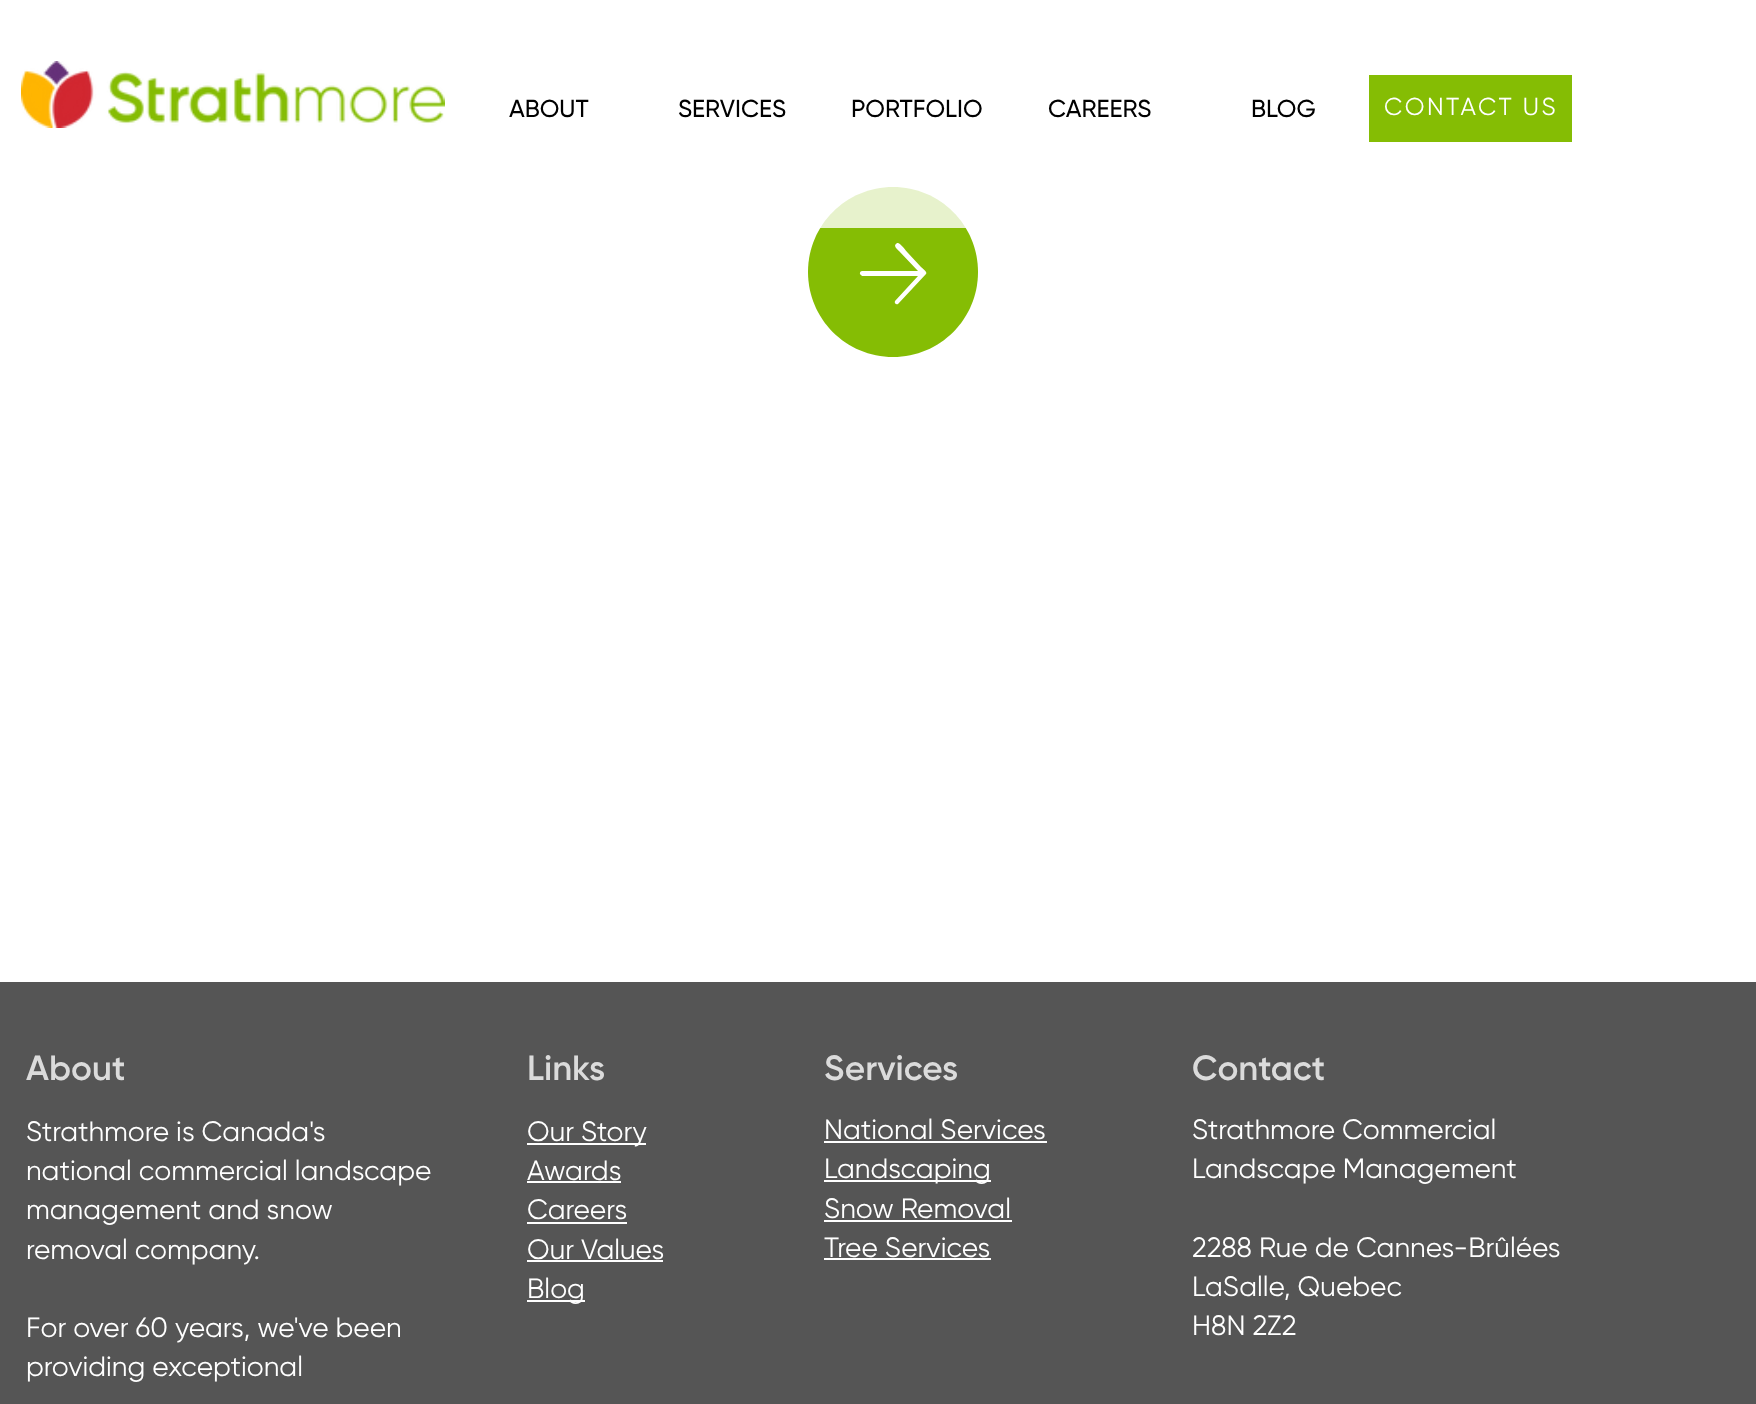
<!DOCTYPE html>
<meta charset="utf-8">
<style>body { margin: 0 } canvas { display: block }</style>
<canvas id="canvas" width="1756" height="1404"></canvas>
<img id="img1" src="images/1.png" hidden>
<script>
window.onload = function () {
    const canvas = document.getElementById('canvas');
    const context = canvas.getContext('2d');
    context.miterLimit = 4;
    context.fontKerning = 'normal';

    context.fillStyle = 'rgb(255, 255, 255)';
    context.fillRect(0, 0, 1756, 1404);
    context.drawImage(document.getElementById('img1'), 21, 61, 424, 67);
    context.fillStyle = 'rgb(133, 189, 4)';
    context.fillRect(1369, 75, 203, 67);
    context.beginPath();
    context.moveTo(978, 272);
    context.bezierCurveTo(978, 319, 940, 357, 893, 357);
    context.bezierCurveTo(846, 357, 808, 319, 808, 272);
    context.bezierCurveTo(808, 225, 846, 187, 893, 187);
    context.bezierCurveTo(940, 187, 978, 225, 978, 272);
    context.closePath();
    context.fill();
    context.fillStyle = 'rgba(255, 255, 255, 0.8)';
    context.fillRect(820, 187, 146, 41);
    context.fillStyle = 'rgb(255, 255, 255)';
    context.beginPath();
    context.moveTo(926, 274);
    context.bezierCurveTo(928, 272, 922, 268, 921, 267);
    context.lineTo(908, 253);
    context.bezierCurveTo(906, 251, 900, 242, 897, 243);
    context.lineTo(896, 244);
    context.bezierCurveTo(893, 246, 898, 250, 899, 251);
    context.lineTo(918, 271);
    context.lineTo(862, 271);
    context.bezierCurveTo(860, 271, 859, 274, 861, 275);
    context.lineTo(862, 276);
    context.lineTo(918, 276);
    context.lineTo(895, 301);
    context.bezierCurveTo(894, 303, 896, 305, 898, 304);
    context.closePath();
    context.fill();
    context.fillStyle = 'rgb(85, 85, 85)';
    context.fillRect(0, 982, 1756, 422);
    context.fillStyle = 'rgb(255, 255, 255)';
    context.fillRect(527, 1143, 119, 2);
    context.fillRect(527, 1181, 94, 2);
    context.fillRect(527, 1222, 100, 2);
    context.fillRect(527, 1260, 136, 2);
    context.fillRect(527, 1300, 58, 2);
    context.fillRect(824, 1141, 223, 2);
    context.fillRect(824, 1180, 167, 2);
    context.fillRect(824, 1220, 188, 2);
    context.fillRect(824, 1258, 167, 2);
    context.font = '500 24.5px Gilroy';
    context.fillStyle = 'rgb(0, 0, 0)';
    context.fillText('ABOUT', 509, 117);
    context.fillText('SERVICES', 678, 117);
    context.fillText('PORTFOLIO', 851, 117);
    context.fillText('CAREERS', 1048, 117);
    context.fillText('BLOG', 1251, 117);
    context.letterSpacing = '2.5px';
    context.font = '24.5px Gilroy';
    context.fillStyle = 'rgb(255, 255, 255)';
    context.fillText('CONTACT US', 1384, 115);
    context.letterSpacing = '0px';
    context.font = '600 35px Gilroy';
    context.fillStyle = 'rgb(219, 219, 219)';
    context.fillText('About', 26, 1080);
    context.fillText('Links', 527, 1080);
    context.fillText('Services', 824, 1080);
    context.fillText('Contact', 1192, 1080);
    context.font = '28px Gilroy';
    context.fillStyle = 'rgb(255, 255, 255)';
    context.fillText('Strathmore is Canada\'s', 26, 1141);
    context.fillText('national commercial landscape', 26, 1180);
    context.fillText('management and snow', 26, 1219);
    context.fillText('removal company.', 26, 1259);
    context.fillText('For over 60 years, we\'ve been', 26, 1337);
    context.fillText('providing exceptional', 26, 1376);
    context.fillText('Our Story', 527, 1141);
    context.fillText('Awards', 527, 1180);
    context.fillText('Careers', 527, 1219);
    context.fillText('Our Values', 527, 1259);
    context.fillText('Blog', 527, 1298);
    context.fillText('National Services', 824, 1139);
    context.fillText('Landscaping', 824, 1178);
    context.fillText('Snow Removal', 824, 1218);
    context.fillText('Tree Services', 824, 1257);
    context.fillText('Strathmore Commercial', 1192, 1139);
    context.fillText('Landscape Management', 1192, 1178);
    context.fillText('2288 Rue de Cannes-Brûlées', 1192, 1257);
    context.fillText('LaSalle, Quebec', 1192, 1296);
    context.fillText('H8N 2Z2', 1192, 1335);
};
</script>
